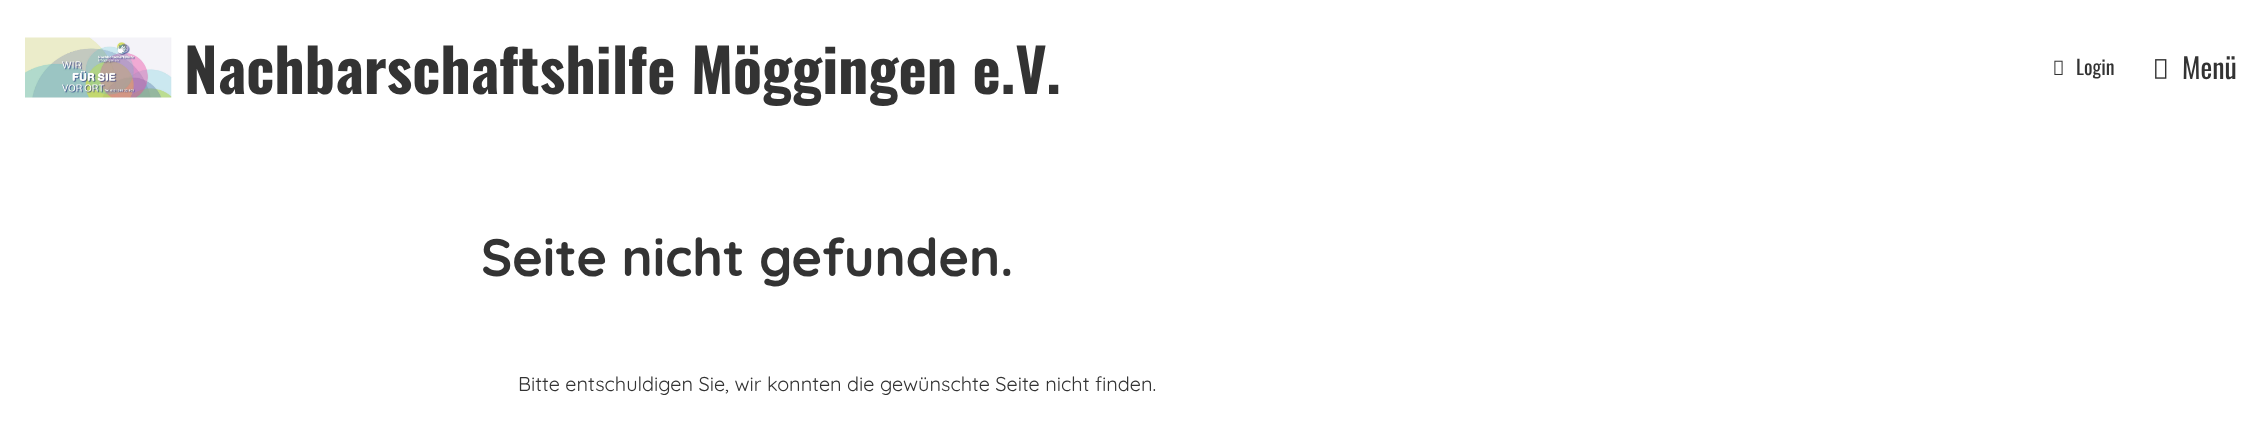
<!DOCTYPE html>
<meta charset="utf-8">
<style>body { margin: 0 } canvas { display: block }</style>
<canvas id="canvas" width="2261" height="425"></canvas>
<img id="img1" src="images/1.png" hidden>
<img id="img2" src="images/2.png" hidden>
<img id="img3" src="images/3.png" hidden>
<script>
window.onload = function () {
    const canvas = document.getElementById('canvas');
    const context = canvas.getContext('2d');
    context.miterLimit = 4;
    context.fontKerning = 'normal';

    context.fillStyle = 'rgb(255, 255, 255)';
    context.fillRect(0, 0, 2261, 425);
    context.drawImage(document.getElementById('img1'), 25, 37, 147, 61);
    context.drawImage(document.getElementById('img2'), 2054, 60, 9, 15);
    context.drawImage(document.getElementById('img3'), 2155, 59, 12, 20);
    context.font = 'bold 60px Oswald';
    context.fillStyle = 'rgb(51, 51, 51)';
    context.fillText('Nachbarschaftshilfe Möggingen e.V.', 184, 94);
    context.font = '20px Oswald';
    context.fillText('Login', 2076, 75);
    context.font = '28px Oswald';
    context.fillText('Menü', 2182, 79);
    context.font = '300 52.5px Quicksand';
    context.fillText('Seite nicht gefunden.', 481, 276);
    context.font = '300 20px "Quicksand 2"';
    context.fillText('Bitte entschuldigen Sie, wir konnten die gewünschte Seite nicht finden.', 518, 391);
};
</script>
